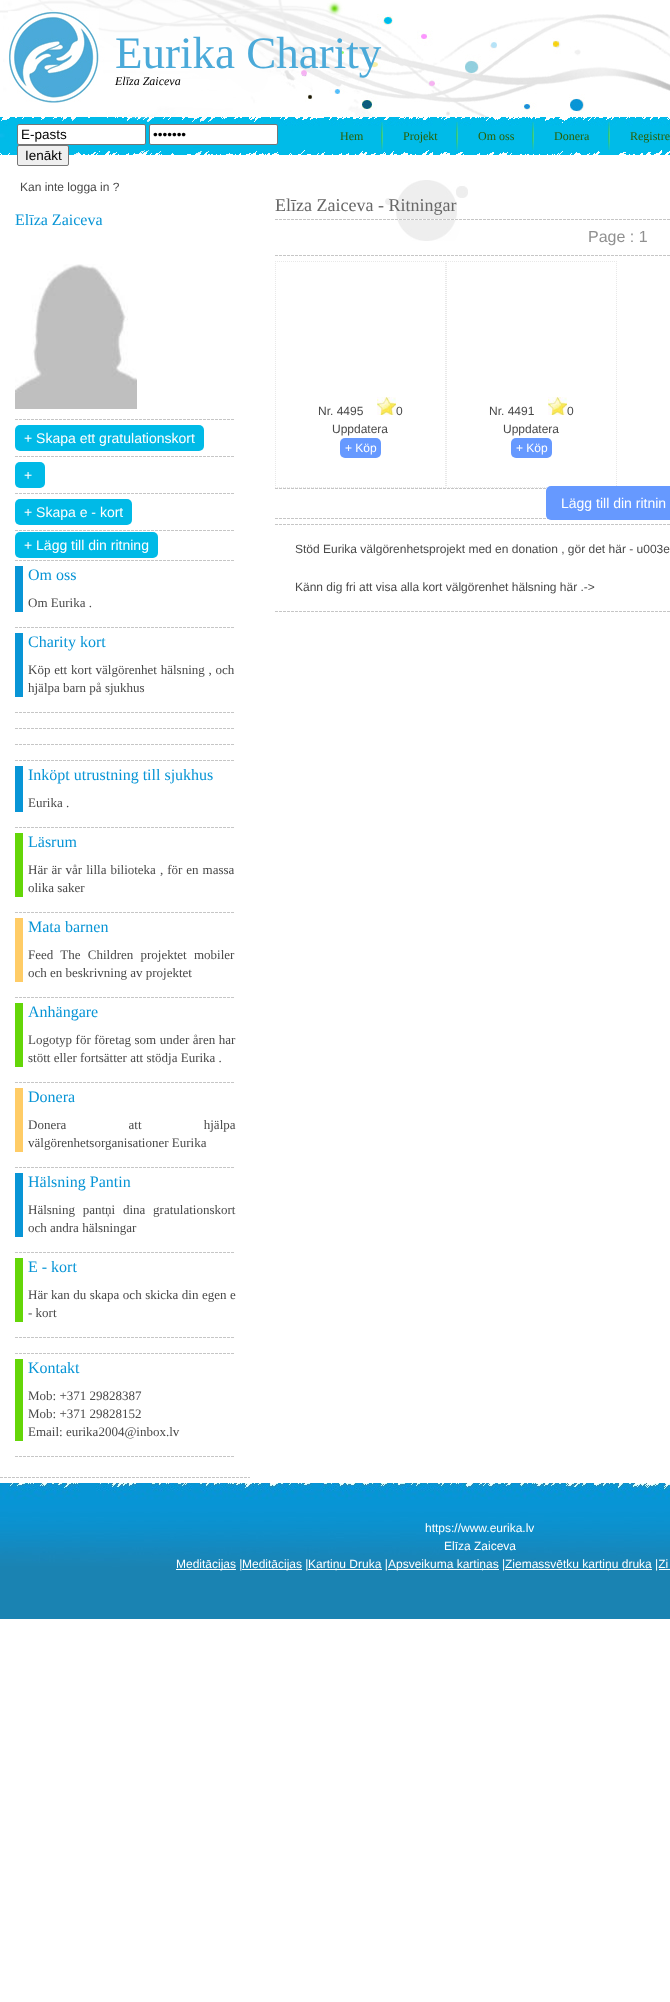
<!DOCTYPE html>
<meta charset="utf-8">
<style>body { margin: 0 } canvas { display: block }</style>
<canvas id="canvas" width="670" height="2002"></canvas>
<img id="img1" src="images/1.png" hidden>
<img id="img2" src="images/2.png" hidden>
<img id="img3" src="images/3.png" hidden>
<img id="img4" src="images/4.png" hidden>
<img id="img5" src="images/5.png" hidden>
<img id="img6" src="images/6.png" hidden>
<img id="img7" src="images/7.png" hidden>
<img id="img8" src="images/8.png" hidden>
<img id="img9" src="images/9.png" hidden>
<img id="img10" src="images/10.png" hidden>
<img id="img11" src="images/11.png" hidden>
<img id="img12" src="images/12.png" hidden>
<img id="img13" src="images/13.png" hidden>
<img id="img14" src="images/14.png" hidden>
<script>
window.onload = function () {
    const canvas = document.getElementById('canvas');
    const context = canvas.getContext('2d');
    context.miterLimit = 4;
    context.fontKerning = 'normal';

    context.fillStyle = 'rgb(255, 255, 255)';
    context.fillRect(0, 0, 670, 2002);
    context.drawImage(document.getElementById('img1'), 0, 0, 670, 155);
    context.beginPath();
    context.roundRect(17.5, 124.5, 128, 20, 1.5);
    context.fill();
    context.strokeStyle = 'rgb(118, 118, 118)';
    context.stroke();
    context.beginPath();
    context.roundRect(149.5, 124.5, 128, 20, 1.5);
    context.fill();
    context.stroke();
    context.fillStyle = 'rgb(239, 239, 239)';
    context.beginPath();
    context.roundRect(17.5, 145.5, 51, 20, 1.5);
    context.fill();
    context.stroke();
    context.drawImage(document.getElementById('img2'), 381, 122, 2, 28);
    context.drawImage(document.getElementById('img3'), 456, 122, 2, 28);
    context.drawImage(document.getElementById('img4'), 532, 122, 2, 28);
    context.drawImage(document.getElementById('img5'), 608, 122, 2, 28);
    context.drawImage(document.getElementById('img6'), 15, 264, 122, 145);
    context.drawImage(document.getElementById('img7'), 15, 419, 219, 1);
    context.fillStyle = 'rgb(0, 186, 231)';
    context.beginPath();
    context.roundRect(15, 425, 189, 26, 5);
    context.fill();
    context.drawImage(document.getElementById('img7'), 15, 456, 219, 1);
    context.beginPath();
    context.roundRect(15, 462, 30, 26, 5);
    context.fill();
    context.drawImage(document.getElementById('img7'), 15, 493, 219, 1);
    context.beginPath();
    context.roundRect(15, 499, 117, 26, 5);
    context.fill();
    context.drawImage(document.getElementById('img7'), 15, 530, 219, 1);
    context.beginPath();
    context.roundRect(15, 532, 143, 26, 5);
    context.fill();
    context.drawImage(document.getElementById('img7'), 15, 560, 219, 1);
    context.fillStyle = 'rgb(8, 149, 214)';
    context.fillRect(15, 566, 8, 46);
    context.drawImage(document.getElementById('img7'), 15, 627, 219, 1);
    context.fillRect(15, 633, 8, 64);
    context.drawImage(document.getElementById('img7'), 15, 712, 219, 1);
    context.drawImage(document.getElementById('img7'), 15, 728, 219, 1);
    context.drawImage(document.getElementById('img7'), 15, 744, 219, 1);
    context.drawImage(document.getElementById('img7'), 15, 760, 219, 1);
    context.fillRect(15, 766, 8, 46);
    context.drawImage(document.getElementById('img7'), 15, 827, 219, 1);
    context.fillStyle = 'rgb(100, 214, 8)';
    context.fillRect(15, 833, 8, 64);
    context.drawImage(document.getElementById('img7'), 15, 912, 219, 1);
    context.fillStyle = 'rgb(255, 204, 102)';
    context.fillRect(15, 918, 8, 64);
    context.drawImage(document.getElementById('img7'), 15, 997, 219, 1);
    context.fillStyle = 'rgb(100, 214, 8)';
    context.fillRect(15, 1003, 8, 64);
    context.drawImage(document.getElementById('img7'), 15, 1082, 219, 1);
    context.fillStyle = 'rgb(255, 204, 102)';
    context.fillRect(15, 1088, 8, 64);
    context.drawImage(document.getElementById('img7'), 15, 1167, 219, 1);
    context.fillStyle = 'rgb(8, 149, 214)';
    context.fillRect(15, 1173, 8, 64);
    context.drawImage(document.getElementById('img7'), 15, 1252, 219, 1);
    context.fillStyle = 'rgb(100, 214, 8)';
    context.fillRect(15, 1258, 8, 64);
    context.drawImage(document.getElementById('img7'), 15, 1337, 219, 1);
    context.drawImage(document.getElementById('img7'), 15, 1353, 219, 1);
    context.fillRect(15, 1359, 8, 82);
    context.drawImage(document.getElementById('img7'), 15, 1456, 219, 1);
    context.drawImage(document.getElementById('img8'), 0, 1477, 250, 1);
    context.drawImage(document.getElementById('img9'), 385, 180, 83, 61);
    context.drawImage(document.getElementById('img10'), 275, 219, 395, 1);
    context.drawImage(document.getElementById('img10'), 275, 255, 395, 1);
    context.beginPath();
    context.moveTo(275, 261.5);
    context.lineTo(446, 261.5);
    context.strokeStyle = 'rgb(232, 232, 232)';
    context.setLineDash([1, 1]);
    context.stroke();
    context.beginPath();
    context.moveTo(445.5, 261);
    context.lineTo(445.5, 488);
    context.stroke();
    context.beginPath();
    context.moveTo(275, 487.5);
    context.lineTo(446, 487.5);
    context.stroke();
    context.beginPath();
    context.moveTo(275.5, 261);
    context.lineTo(275.5, 488);
    context.stroke();
    context.drawImage(document.getElementById('img11'), 377, 397, 19, 18);
    context.fillStyle = 'rgb(102, 153, 255)';
    context.beginPath();
    context.roundRect(340, 438, 41, 20, 5);
    context.fill();
    context.beginPath();
    context.moveTo(446, 261.5);
    context.lineTo(617, 261.5);
    context.stroke();
    context.beginPath();
    context.moveTo(616.5, 261);
    context.lineTo(616.5, 488);
    context.stroke();
    context.beginPath();
    context.moveTo(446, 487.5);
    context.lineTo(617, 487.5);
    context.stroke();
    context.beginPath();
    context.moveTo(446.5, 261);
    context.lineTo(446.5, 488);
    context.stroke();
    context.drawImage(document.getElementById('img11'), 548, 397, 19, 18);
    context.beginPath();
    context.roundRect(511, 438, 41, 20, 5);
    context.fill();
    context.drawImage(document.getElementById('img12'), 275, 488, 272, 1);
    context.drawImage(document.getElementById('img13'), 275, 518, 273, 1);
    context.beginPath();
    context.roundRect(546, 486, 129, 34, 5);
    context.fill();
    context.drawImage(document.getElementById('img10'), 275, 524, 395, 1);
    context.drawImage(document.getElementById('img10'), 275, 611, 395, 1);
    context.drawImage(document.getElementById('img14'), 0, 1483, 670, 136);
    context.fillStyle = 'rgb(255, 255, 255)';
    context.fillRect(176, 1569, 60, 1);
    context.fillRect(242, 1569, 60, 1);
    context.fillRect(308, 1569, 74, 1);
    context.fillRect(388, 1569, 111, 1);
    context.fillRect(505, 1569, 147, 1);
    context.fillRect(659, 1569, 11, 1);
    context.font = '45px Liberation Serif';
    context.fillStyle = 'rgb(75, 170, 217)';
    context.fillText('Eurika Charity', 115, 68);
    context.font = 'italic 12px Liberation Serif';
    context.fillStyle = 'rgb(0, 0, 0)';
    context.fillText('Elīza Zaiceva', 115, 85);
    context.font = '13.5px Liberation Sans';
    context.fillText('E-pasts', 21, 139);
    context.fillText('•••••••', 153, 139);
    context.fillText('Ienākt', 25, 160);
    context.font = '12px Liberation Serif';
    context.fillStyle = 'rgb(42, 95, 0)';
    context.fillText('Hem', 340, 140);
    context.fillText('Projekt', 403, 140);
    context.fillText('Om oss', 478, 140);
    context.fillText('Donera', 554, 140);
    context.fillText('Registre', 630, 140);
    context.font = '12px Liberation Sans';
    context.fillStyle = 'rgb(73, 73, 73)';
    context.fillText('Kan inte logga in ?', 20, 191);
    context.font = '16px Liberation Serif';
    context.fillStyle = 'rgb(8, 149, 214)';
    context.fillText('Elīza Zaiceva', 15, 225);
    context.font = '14px Liberation Sans';
    context.fillStyle = 'rgb(255, 255, 255)';
    context.fillText('+ Skapa ett gratulationskort', 24, 443);
    context.fillText('+', 24, 480);
    context.fillText('+ Skapa e - kort', 24, 517);
    context.fillText('+ Lägg till din ritning', 24, 550);
    context.font = '16px Liberation Serif';
    context.fillStyle = 'rgb(8, 149, 214)';
    context.fillText('Om oss', 28, 580);
    context.font = '13px Liberation Serif';
    context.fillStyle = 'rgb(73, 73, 73)';
    context.fillText('Om Eurika .', 28, 607);
    context.font = '16px Liberation Serif';
    context.fillStyle = 'rgb(8, 149, 214)';
    context.fillText('Charity kort', 28, 647);
    context.wordSpacing = '0.5px';
    context.font = '13px Liberation Serif';
    context.fillStyle = 'rgb(73, 73, 73)';
    context.fillText('Köp ett kort välgörenhet hälsning , och', 28, 674);
    context.wordSpacing = '0px';
    context.fillText('hjälpa barn på sjukhus', 28, 692);
    context.font = '16px Liberation Serif';
    context.fillStyle = 'rgb(8, 149, 214)';
    context.fillText('Inköpt utrustning till sjukhus', 28, 780);
    context.font = '13px Liberation Serif';
    context.fillStyle = 'rgb(73, 73, 73)';
    context.fillText('Eurika .', 28, 807);
    context.font = '16px Liberation Serif';
    context.fillStyle = 'rgb(8, 149, 214)';
    context.fillText('Läsrum', 28, 847);
    context.wordSpacing = '0.75px';
    context.font = '13px Liberation Serif';
    context.fillStyle = 'rgb(73, 73, 73)';
    context.fillText('Här är vår lilla bilioteka , för en massa', 28, 874);
    context.wordSpacing = '0px';
    context.fillText('olika saker', 28, 892);
    context.font = '16px Liberation Serif';
    context.fillStyle = 'rgb(8, 149, 214)';
    context.fillText('Mata barnen', 28, 932);
    context.wordSpacing = '4px';
    context.font = '13px Liberation Serif';
    context.fillStyle = 'rgb(73, 73, 73)';
    context.fillText('Feed The Children projektet mobiler', 28, 959);
    context.wordSpacing = '0px';
    context.fillText('och en beskrivning av projektet', 28, 977);
    context.font = '16px Liberation Serif';
    context.fillStyle = 'rgb(8, 149, 214)';
    context.fillText('Anhängare', 28, 1017);
    context.wordSpacing = '0.25px';
    context.font = '13px Liberation Serif';
    context.fillStyle = 'rgb(73, 73, 73)';
    context.fillText('Logotyp för företag som under åren har', 28, 1044);
    context.wordSpacing = '0px';
    context.fillText('stött eller fortsätter att stödja Eurika .', 28, 1062);
    context.font = '16px Liberation Serif';
    context.fillStyle = 'rgb(8, 149, 214)';
    context.fillText('Donera', 28, 1102);
    context.wordSpacing = '59px';
    context.font = '13px Liberation Serif';
    context.fillStyle = 'rgb(73, 73, 73)';
    context.fillText('Donera att hjälpa', 28, 1129);
    context.wordSpacing = '0px';
    context.fillText('välgörenhetsorganisationer Eurika', 28, 1147);
    context.font = '16px Liberation Serif';
    context.fillStyle = 'rgb(8, 149, 214)';
    context.fillText('Hälsning Pantin', 28, 1187);
    context.wordSpacing = '4.5px';
    context.font = '13px Liberation Serif';
    context.fillStyle = 'rgb(73, 73, 73)';
    context.fillText('Hälsning pantņi dina gratulationskort', 28, 1214);
    context.wordSpacing = '0px';
    context.fillText('och andra hälsningar', 28, 1232);
    context.font = '16px Liberation Serif';
    context.fillStyle = 'rgb(8, 149, 214)';
    context.fillText('E - kort', 28, 1272);
    context.wordSpacing = '0.25px';
    context.font = '13px Liberation Serif';
    context.fillStyle = 'rgb(73, 73, 73)';
    context.fillText('Här kan du skapa och skicka din egen e', 28, 1299);
    context.wordSpacing = '0px';
    context.fillText('- kort', 28, 1317);
    context.font = '16px Liberation Serif';
    context.fillStyle = 'rgb(8, 149, 214)';
    context.fillText('Kontakt', 28, 1373);
    context.font = '13px Liberation Serif';
    context.fillStyle = 'rgb(73, 73, 73)';
    context.fillText('Mob: +371 29828387', 28, 1400);
    context.fillText('Mob: +371 29828152', 28, 1418);
    context.fillText('Email: eurika2004@inbox.lv', 28, 1436);
    context.font = '18px Liberation Serif';
    context.fillStyle = 'rgb(103, 103, 103)';
    context.fillText('Elīza Zaiceva - Ritningar', 275, 211);
    context.font = '16px Liberation Sans';
    context.fillStyle = 'rgb(144, 144, 144)';
    context.fillText('Page : 1', 588, 242);
    context.font = '12px Liberation Sans';
    context.fillStyle = 'rgb(73, 73, 73)';
    context.fillText('Nr. 4495', 318, 415);
    context.fillText('0', 396, 415);
    context.fillText('Uppdatera', 332, 433);
    context.fillStyle = 'rgb(255, 255, 255)';
    context.fillText('+ Köp', 345, 452);
    context.fillStyle = 'rgb(73, 73, 73)';
    context.fillText('Nr. 4491', 489, 415);
    context.fillText('0', 567, 415);
    context.fillText('Uppdatera', 503, 433);
    context.fillStyle = 'rgb(255, 255, 255)';
    context.fillText('+ Köp', 516, 452);
    context.font = '14px Liberation Sans';
    context.fillText('Lägg till din ritnin', 561, 508);
    context.font = '12px Liberation Sans';
    context.fillStyle = 'rgb(73, 73, 73)';
    context.fillText('Stöd Eurika välgörenhetsprojekt med en donation , gör det här - u003e', 295, 553);
    context.fillText('Känn dig fri att visa alla kort välgörenhet hälsning här .->', 295, 591);
    context.fillStyle = 'rgb(255, 255, 255)';
    context.fillText('https://www.eurika.lv', 425, 1532);
    context.fillText('Elīza Zaiceva', 444, 1550);
    context.fillText('Meditācijas |', 176, 1568);
    context.fillText('Meditācijas |', 242, 1568);
    context.fillText('Kartiņu Druka |', 308, 1568);
    context.fillText('Apsveikuma kartiņas |', 388, 1568);
    context.fillText('Ziemassvētku kartiņu druka |Zi', 505, 1568);
};
</script>
